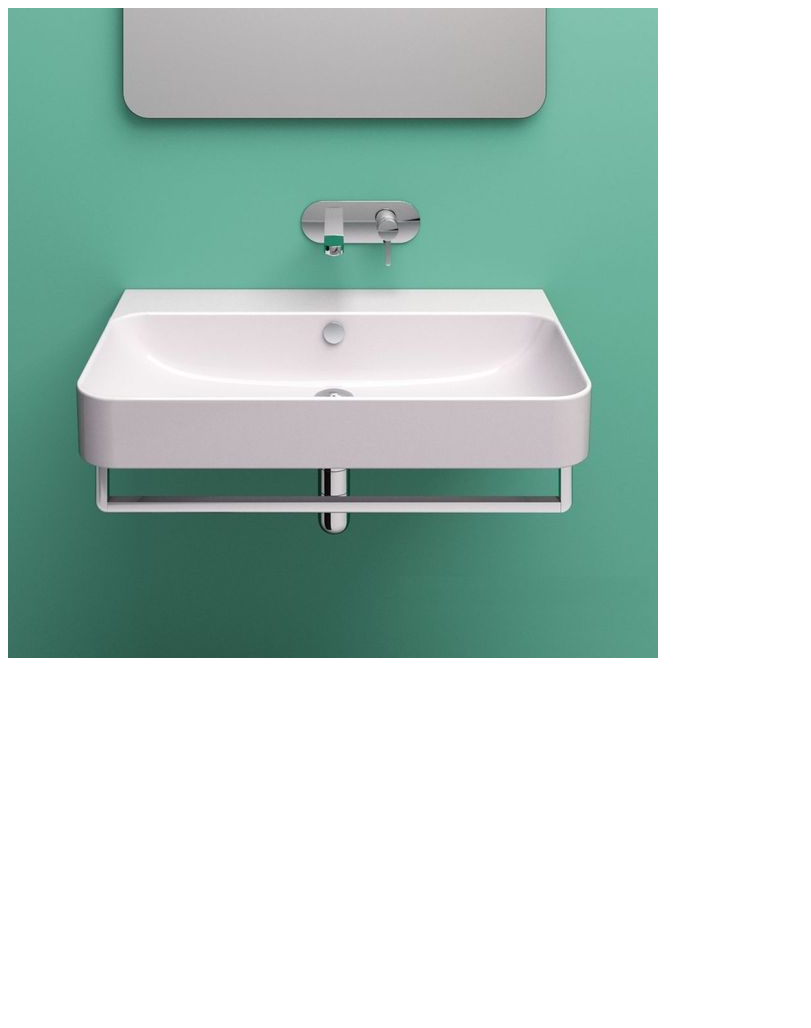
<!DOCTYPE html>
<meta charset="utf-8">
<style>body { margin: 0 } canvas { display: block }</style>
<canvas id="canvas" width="811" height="1028"></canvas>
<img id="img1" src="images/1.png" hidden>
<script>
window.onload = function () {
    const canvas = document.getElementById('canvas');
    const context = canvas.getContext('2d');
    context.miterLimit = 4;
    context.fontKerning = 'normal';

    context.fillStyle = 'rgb(255, 255, 255)';
    context.fillRect(0, 0, 811, 1028);
    context.drawImage(document.getElementById('img1'), 8, 8, 650, 650);
};
</script>
